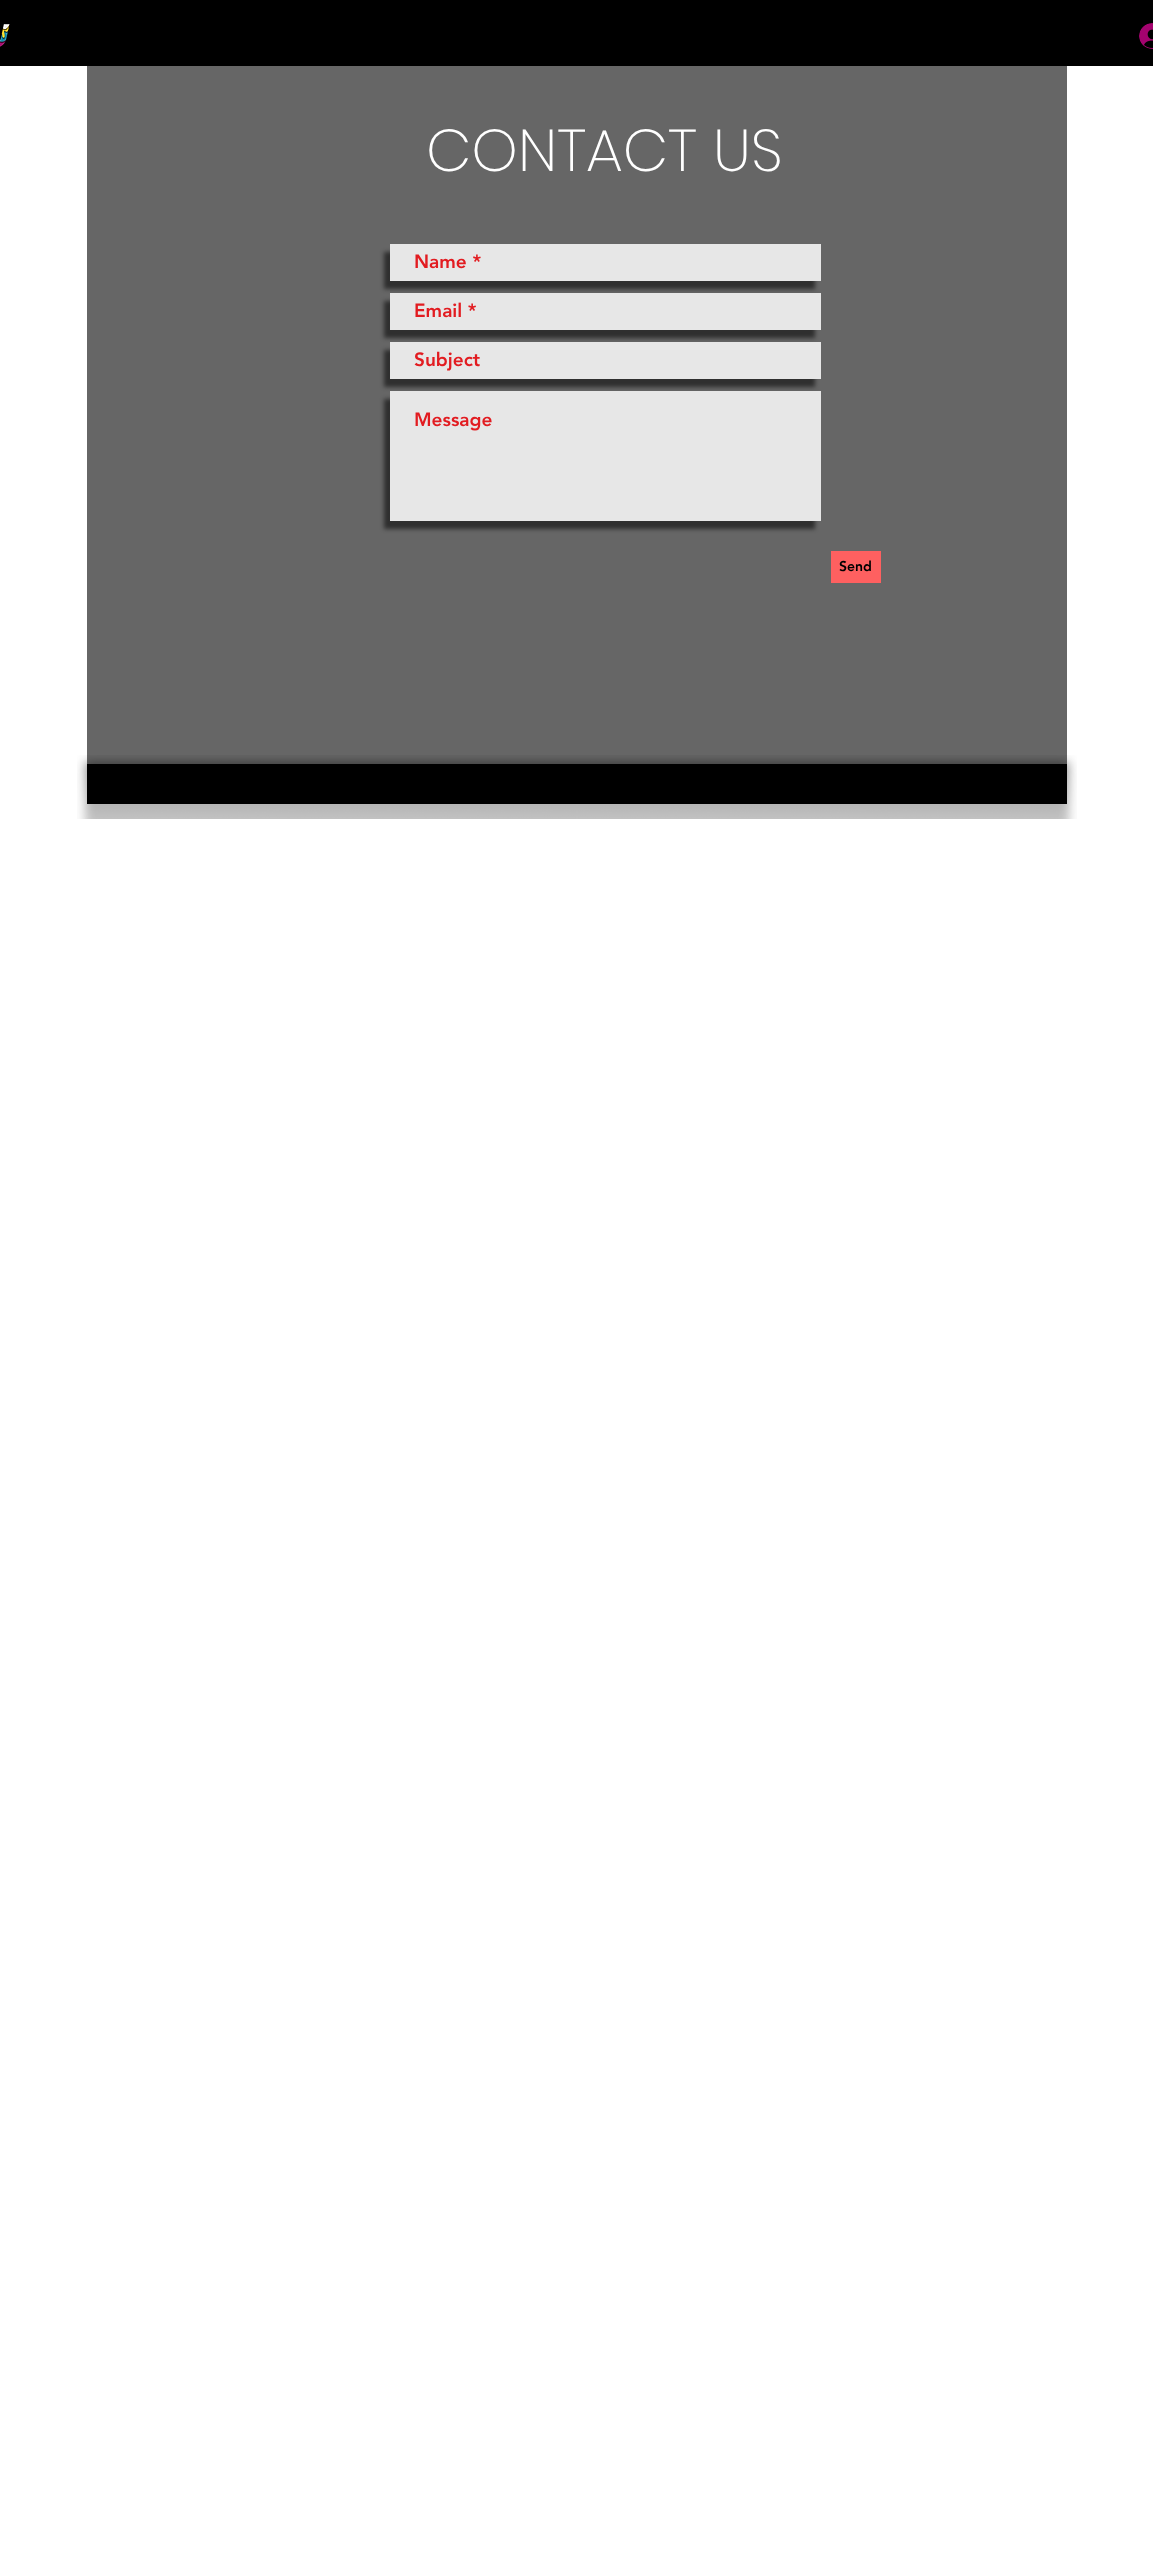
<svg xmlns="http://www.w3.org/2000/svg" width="1153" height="2570">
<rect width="100%" height="100%" fill="#fff"/>
<rect width="1153" height="66" fill="#000"/>
<image x="0" y="24" width="10" height="23" href="media/1.png"/>
<image x="1139" y="23" width="14" height="26" href="media/2.png"/>
<rect x="87" y="66" width="980" height="698" fill="#666"/>
<text x="426" y="171" style="font-family:Poppins;font-size:59px;font-weight:200;fill:#fff">CONTACT US</text>
<rect x="384" y="252" width="431" height="37" fill="#0000008a" filter="blur(2px)"/>
<rect x="390" y="244" width="431" height="37" fill="#e7e7e7"/>
<text x="414" y="268" style="font-family:'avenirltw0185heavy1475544';font-size:19px;font-weight:900;fill:#e21c21">Name *</text>
<rect x="384" y="301" width="431" height="37" fill="#0000008a" filter="blur(2px)"/>
<rect x="390" y="293" width="431" height="37" fill="#e7e7e7"/>
<text x="414" y="317" style="font-family:'avenirltw0185heavy1475544';font-size:19px;font-weight:900;fill:#e21c21">Email *</text>
<rect x="384" y="350" width="431" height="37" fill="#0000008a" filter="blur(2px)"/>
<rect x="390" y="342" width="431" height="37" fill="#e7e7e7"/>
<text x="414" y="366" style="font-family:'avenirltw0185heavy1475544';font-size:19px;font-weight:900;fill:#e21c21">Subject</text>
<rect x="384" y="399" width="431" height="130" fill="#0000008a" filter="blur(2px)"/>
<rect x="390" y="391" width="431" height="130" fill="#e7e7e7"/>
<text x="414" y="426" style="font-family:'avenirltw0185heavy1475544';font-size:19px;font-weight:900;fill:#e21c21">Message</text>
<rect x="831" y="551" width="50" height="32" fill="#fe6060"/>
<text x="839" y="571" style="font-family:'avenirltw0185heavy1475544';font-size:14px;font-weight:900;fill:#000">Send</text>
<image x="77" y="755" width="45" height="64" href="media/3.png"/>
<image x="122" y="755" width="910" height="64" href="media/4.png"/>
<image x="1032" y="755" width="45" height="64" href="media/5.png"/>
<rect x="87" y="764" width="980" height="40" fill="#000"/>
</svg>
